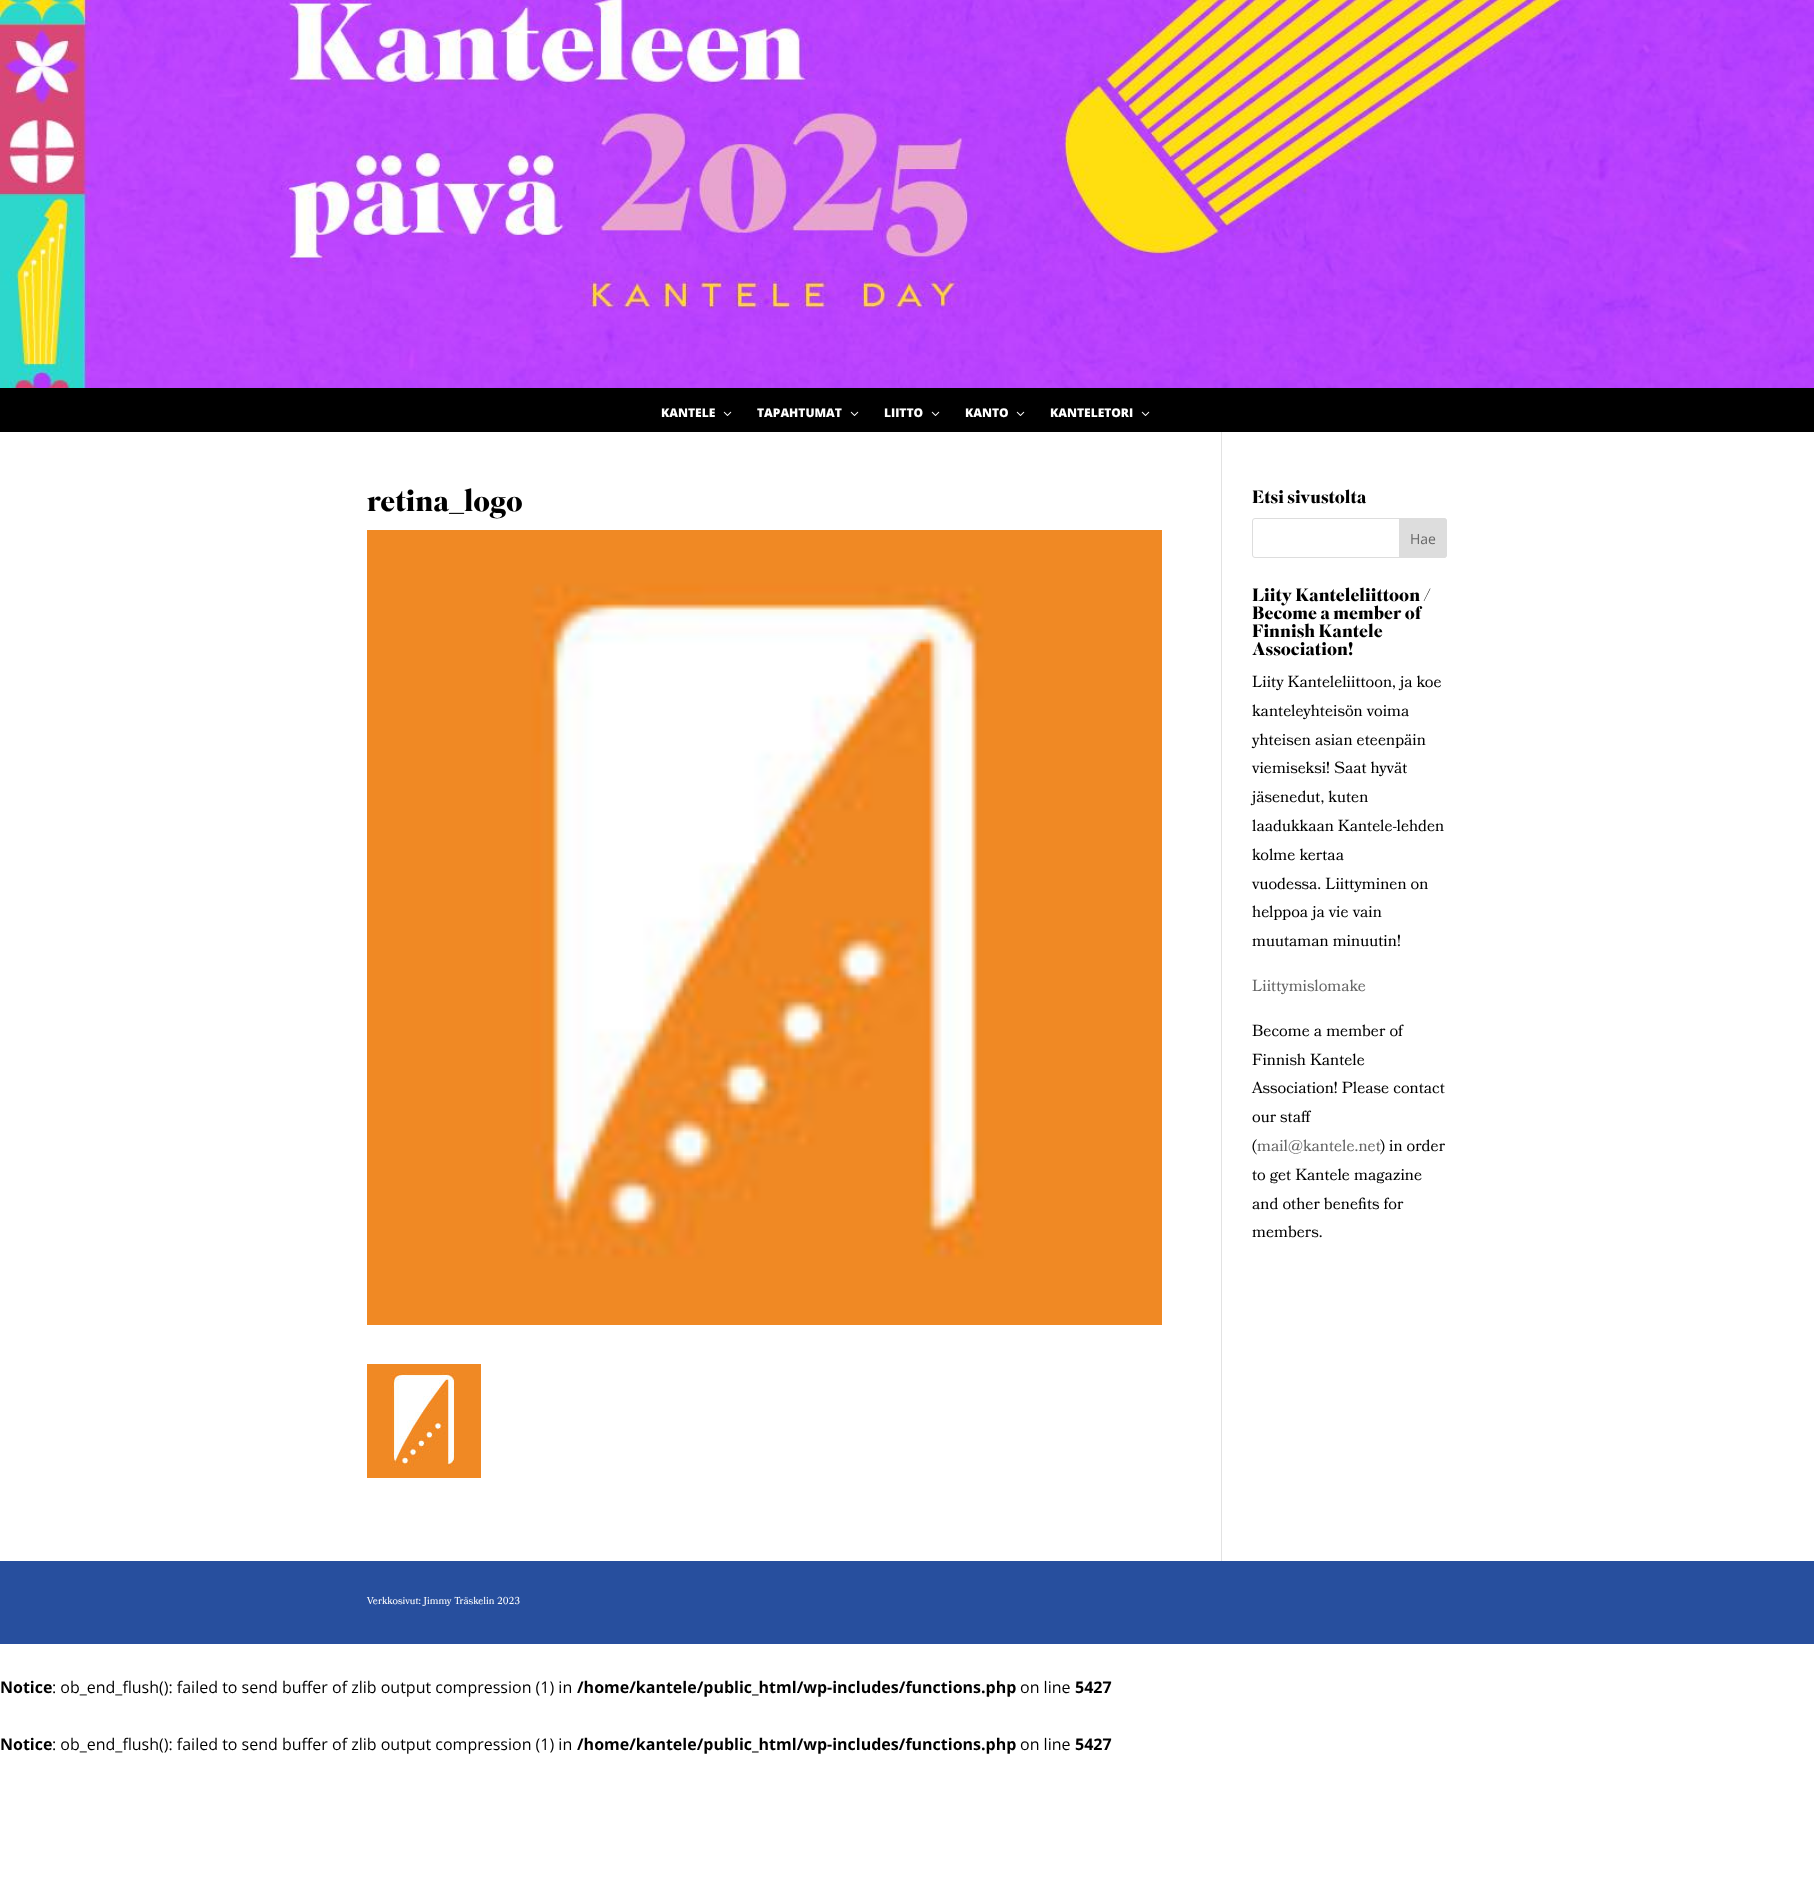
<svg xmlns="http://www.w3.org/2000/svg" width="1814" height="1886">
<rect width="100%" height="100%" fill="#fff"/>
<image x="0" y="0" width="1814" height="388" href="media/1.png"/>
<rect y="388" width="1814" height="44" fill="#000"/>
<text x="661" y="417" style="font-family:Open Sans;font-size:12px;font-weight:800;fill:#fff">KANTELE</text>
<image x="723" y="411" width="9" height="5" href="media/2.png"/>
<text x="757" y="417" style="font-family:Open Sans;font-size:12px;font-weight:800;fill:#fff">TAPAHTUMAT</text>
<image x="850" y="411" width="9" height="5" href="media/2.png"/>
<text x="884" y="417" style="font-family:Open Sans;font-size:12px;font-weight:800;fill:#fff">LIITTO</text>
<image x="931" y="411" width="9" height="5" href="media/2.png"/>
<text x="965" y="417" style="font-family:Open Sans;font-size:12px;font-weight:800;fill:#fff">KANTO</text>
<image x="1016" y="411" width="9" height="5" href="media/2.png"/>
<text x="1050" y="417" style="font-family:Open Sans;font-size:12px;font-weight:800;fill:#fff">KANTELETORI</text>
<image x="1141" y="411" width="9" height="5" href="media/2.png"/>
<rect x="1221" y="432" width="1" height="1129" fill="#e2e2e2"/>
<text x="367" y="511" style="font-family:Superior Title;font-size:30px;font-weight:bold;fill:#000">retina_logo</text>
<image x="367" y="530" width="795" height="795" href="media/3.png"/>
<image x="367" y="1364" width="114" height="114" href="media/4.png"/>
<text x="1252" y="503" style="font-family:Superior Title;font-size:18px;font-weight:bold;fill:#000">Etsi sivustolta</text>
<rect x="1252.5" y="518.5" width="194" height="39" rx="2.5" fill="none" stroke="#ddd"/>
<path d="M1399.5 518.5h44.5c1.5 0 2.5 1 2.5 2.5v34c0 1.5-1 2.5-2.5 2.5h-44.5z" fill="#ddd" stroke="#ddd"/>
<text x="1410" y="544" style="font-family:Open Sans;font-size:14px;fill:#666">Hae</text>
<text x="1252" y="601" style="font-family:Superior Title;font-size:18px;font-weight:bold;fill:#000">Liity Kanteleliittoon /</text>
<text x="1252" y="619" style="font-family:Superior Title;font-size:18px;font-weight:bold;fill:#000">Become a member of</text>
<text x="1252" y="637" style="font-family:Superior Title;font-size:18px;font-weight:bold;fill:#000">Finnish Kantele</text>
<text x="1252" y="655" style="font-family:Superior Title;font-size:18px;font-weight:bold;fill:#000">Association!</text>
<text x="1252" y="687" style="font-family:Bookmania;font-size:16px;fill:#000">Liity Kanteleliittoon, ja koe</text>
<text x="1252" y="716" style="font-family:Bookmania;font-size:16px;fill:#000">kanteleyhteisön voima</text>
<text x="1252" y="745" style="font-family:Bookmania;font-size:16px;fill:#000">yhteisen asian eteenpäin</text>
<text x="1252" y="773" style="font-family:Bookmania;font-size:16px;fill:#000">viemiseksi! Saat hyvät</text>
<text x="1252" y="802" style="font-family:Bookmania;font-size:16px;fill:#000">jäsenedut, kuten</text>
<text x="1252" y="831" style="font-family:Bookmania;font-size:16px;fill:#000">laadukkaan Kantele-lehden</text>
<text x="1252" y="860" style="font-family:Bookmania;font-size:16px;fill:#000">kolme kertaa</text>
<text x="1252" y="889" style="font-family:Bookmania;font-size:16px;fill:#000">vuodessa. Liittyminen on</text>
<text x="1252" y="917" style="font-family:Bookmania;font-size:16px;fill:#000">helppoa ja vie vain</text>
<text x="1252" y="946" style="font-family:Bookmania;font-size:16px;fill:#000">muutaman minuutin!</text>
<text x="1252" y="991" style="font-family:Bookmania;font-size:16px;fill:#666">Liittymislomake</text>
<text x="1252" y="1036" style="font-family:Bookmania;font-size:16px;fill:#000">Become a member of</text>
<text x="1252" y="1065" style="font-family:Bookmania;font-size:16px;fill:#000">Finnish Kantele</text>
<text x="1252" y="1093" style="font-family:Bookmania;font-size:16px;fill:#000">Association! Please contact</text>
<text x="1252" y="1122" style="font-family:Bookmania;font-size:16px;fill:#000">our staff</text>
<text x="1252" y="1151" style="font-family:Bookmania;font-size:16px;fill:#000">(</text>
<text x="1257" y="1151" style="font-family:Bookmania;font-size:16px;fill:#666">mail@kantele.net</text>
<text x="1380" y="1151" style="font-family:Bookmania;font-size:16px;fill:#000">) in order</text>
<text x="1252" y="1180" style="font-family:Bookmania;font-size:16px;fill:#000">to get Kantele magazine</text>
<text x="1252" y="1209" style="font-family:Bookmania;font-size:16px;fill:#000">and other benefits for</text>
<text x="1252" y="1237" style="font-family:Bookmania;font-size:16px;fill:#000">members.</text>
<rect y="1561" width="1814" height="83" fill="#274f9e"/>
<text x="367" y="1604" style="font-family:Bookmania;font-size:10px;fill:#fff">Verkkosivut: Jimmy Träskelin 2023</text>
<text x="0" y="1693" style="font-family:Open Sans;font-size:16px;font-weight:bold;fill:#000">Notice</text>
<text x="52" y="1693" style="font-family:Open Sans;font-size:16px;fill:#000">: ob_end_flush(): failed to send buffer of zlib output compression (1) in</text>
<text x="577" y="1693" style="font-family:Open Sans;font-size:16px;font-weight:bold;fill:#000">/home/kantele/public_html/wp-includes/functions.php</text>
<text x="1020" y="1693" style="font-family:Open Sans;font-size:16px;fill:#000">on line</text>
<text x="1075" y="1693" style="font-family:Open Sans;font-size:16px;font-weight:bold;fill:#000">5427</text>
<text x="0" y="1750" style="font-family:Open Sans;font-size:16px;font-weight:bold;fill:#000">Notice</text>
<text x="52" y="1750" style="font-family:Open Sans;font-size:16px;fill:#000">: ob_end_flush(): failed to send buffer of zlib output compression (1) in</text>
<text x="577" y="1750" style="font-family:Open Sans;font-size:16px;font-weight:bold;fill:#000">/home/kantele/public_html/wp-includes/functions.php</text>
<text x="1020" y="1750" style="font-family:Open Sans;font-size:16px;fill:#000">on line</text>
<text x="1075" y="1750" style="font-family:Open Sans;font-size:16px;font-weight:bold;fill:#000">5427</text>
</svg>
